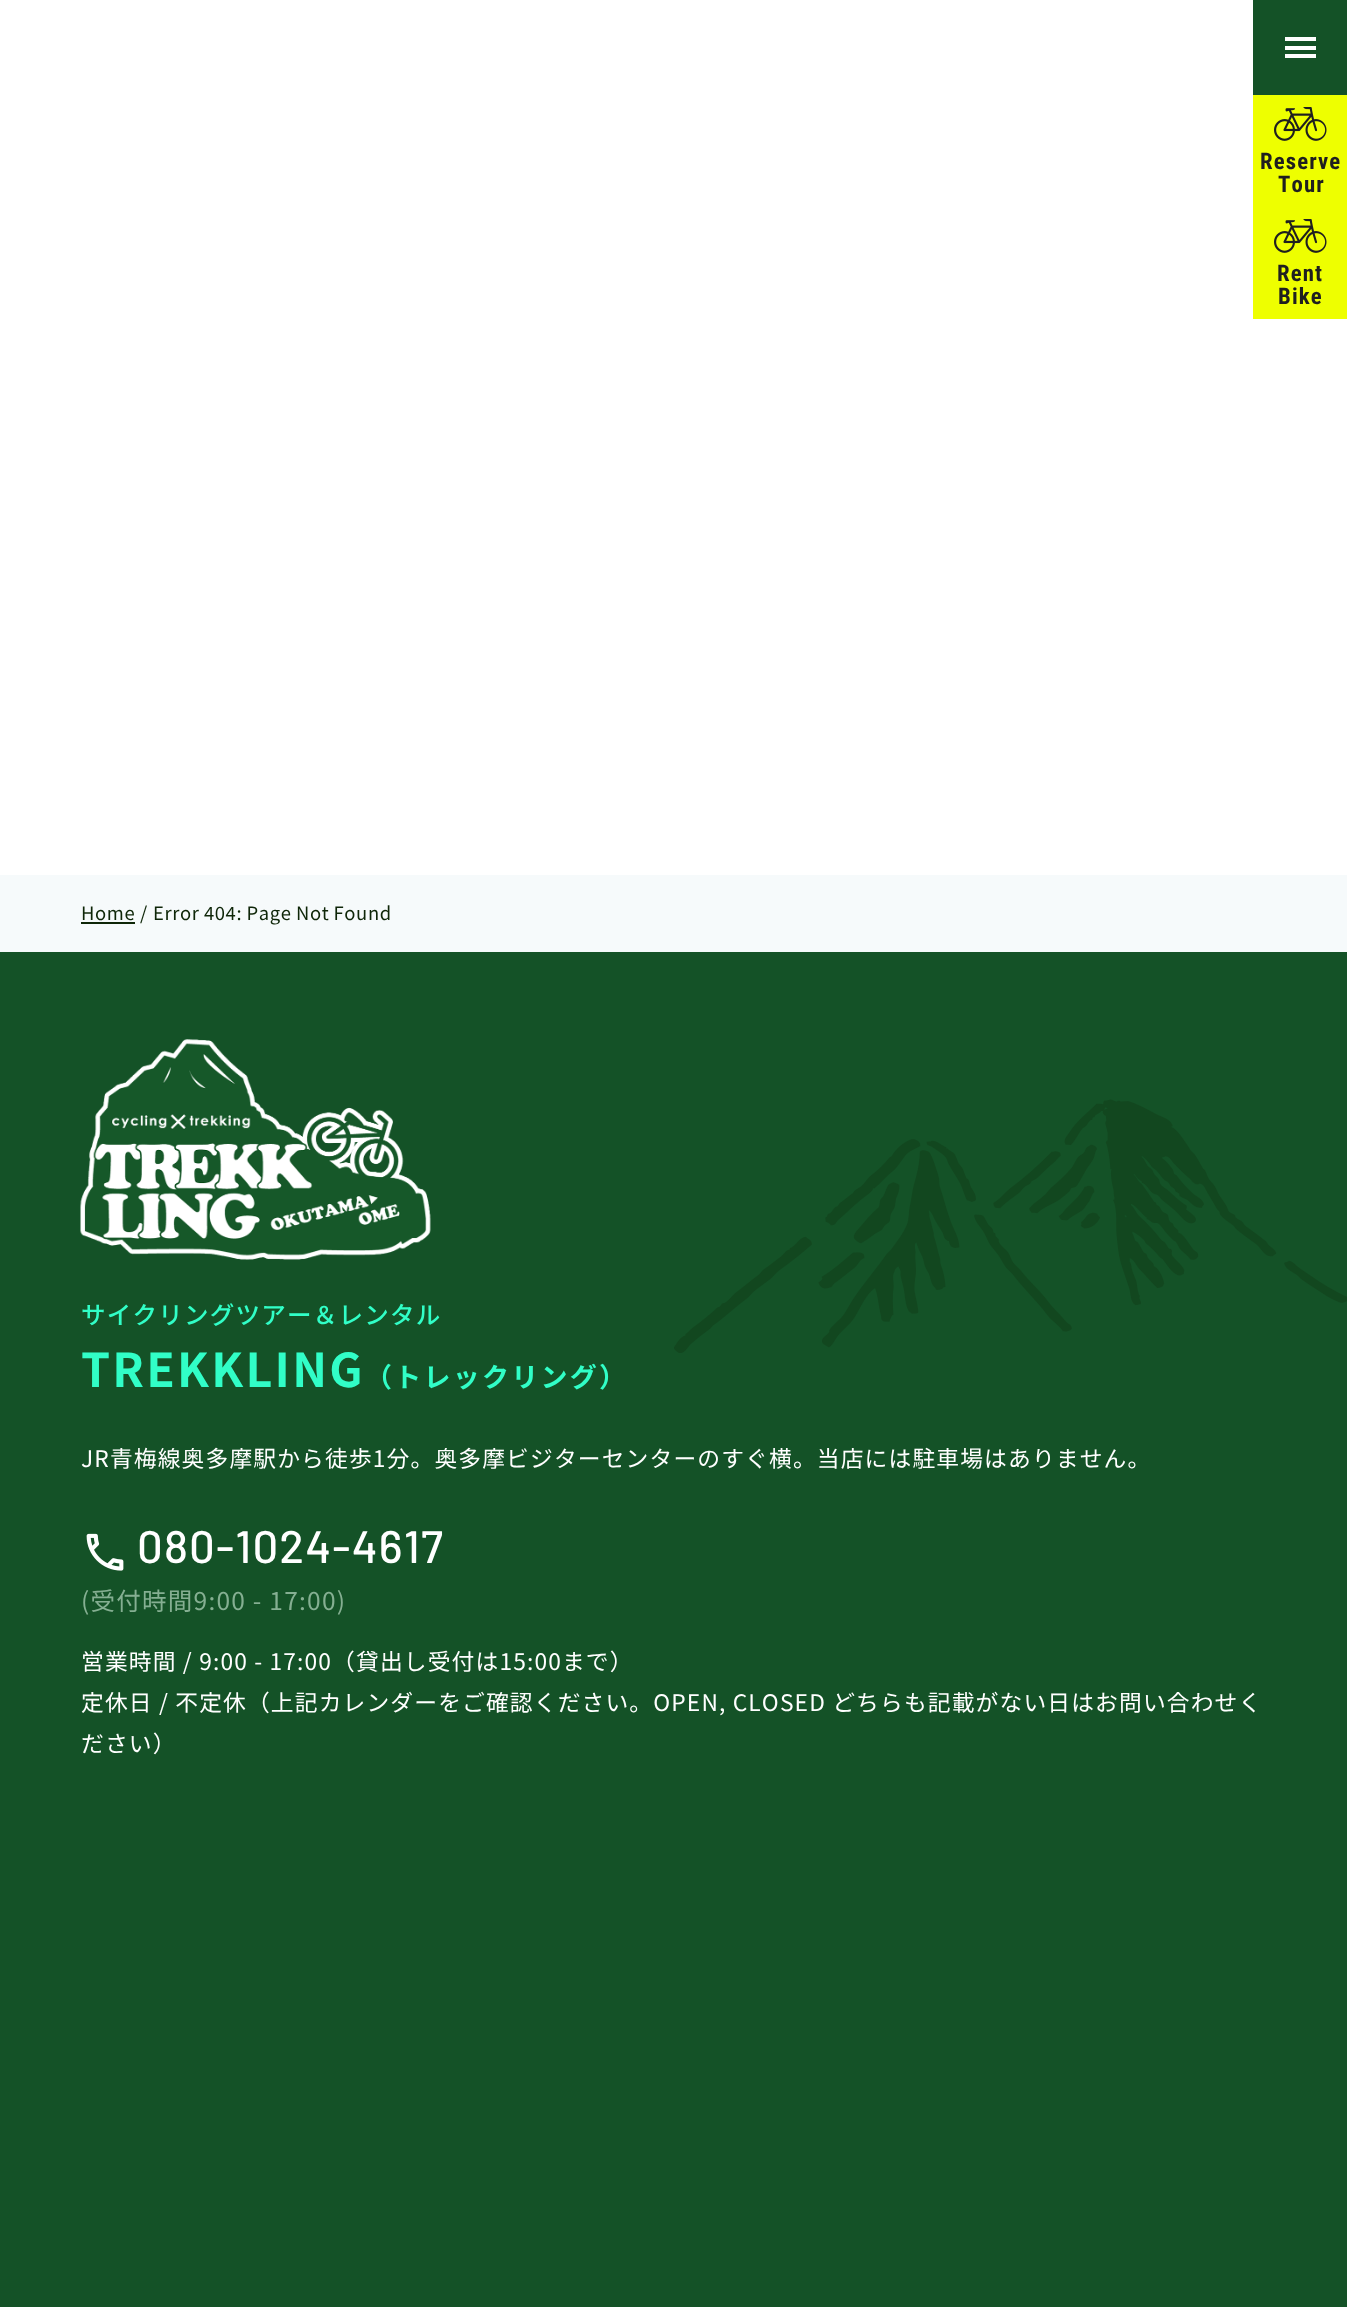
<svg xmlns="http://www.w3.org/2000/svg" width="1347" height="2307">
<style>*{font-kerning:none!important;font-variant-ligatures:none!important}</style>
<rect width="100%" height="100%" fill="#fff"/>
<rect x="1253" width="94" height="95" fill="#145227"/>
<rect x="1285" y="37" width="31" height="4" fill="#fff"/>
<rect x="1285" y="46" width="31" height="4" fill="#fff"/>
<rect x="1285" y="54" width="31" height="4" fill="#fff"/>
<rect x="1253" y="95" width="94" height="224" fill="#ef0"/>
<image x="1274" y="107" width="53" height="34" href="media/1.png"/>
<text x="1260" y="169" style="font-family:Roboto Condensed;font-size:22.75px;font-weight:bold;letter-spacing:1.15px;fill:#1f1f1f">Reserve</text>
<text x="1278" y="192" style="font-family:Roboto Condensed;font-size:22.75px;font-weight:bold;letter-spacing:1.15px;fill:#1f1f1f">Tour</text>
<image x="1274" y="219" width="53" height="34" href="media/1.png"/>
<text x="1277" y="281" style="font-family:Roboto Condensed;font-size:22.75px;font-weight:bold;letter-spacing:1.15px;fill:#1f1f1f">Rent</text>
<text x="1278" y="304" style="font-family:Roboto Condensed;font-size:22.75px;font-weight:bold;letter-spacing:1.15px;fill:#1f1f1f">Bike</text>
<rect y="875" width="1347" height="77" fill="#f6fafb"/>
<rect x="81" y="922" width="54" height="2" fill="#0e2608"/>
<text x="81" y="920" style="font-family:Noto Sans JP;font-size:18.4px;letter-spacing:0.65px;fill:#0e2608">Home /</text>
<text x="153" y="920" word-spacing="-0.5" style="font-family:Noto Sans JP;font-size:18.4px;letter-spacing:0.65px;fill:#0e2608">Error 404: Page Not Found</text>
<rect y="952" width="1347" height="1355" fill="#145227"/>
<image x="674" y="1099" width="673" height="254" href="media/2.png"/>
<image x="80" y="1039" width="351" height="221" href="media/3.png"/>
<text x="81" y="1324" style="font-family:Noto Sans JP;font-size:24.5px;font-weight:500;letter-spacing:1.25px;fill:#31fec7">サイクリングツアー＆レンタル</text>
<text x="81" y="1387" style="font-family:Noto Sans JP;font-size:46.5px;font-weight:bold;letter-spacing:2.25px;fill:#31fec7">TREKKLING</text>
<text x="365" y="1387" style="font-family:Noto Sans JP;font-size:27px;font-weight:bold;letter-spacing:2.25px;fill:#31fec7">（トレックリング）</text>
<text x="81" y="1467" style="font-family:Noto Sans JP;font-size:22.75px;letter-spacing:1.15px;fill:#fff">JR青梅線奥多摩駅から徒歩1分。奥多摩ビジターセンターのすぐ横。当店には駐車場はありません。</text>
<image x="86" y="1533" width="38" height="38" href="media/4.png"/>
<text x="137" y="1563" style="font-family:Barlow;font-size:45.5px;font-weight:500;letter-spacing:1.15px;fill:#fff">080-1024-4617</text>
<text x="81" y="1610" style="font-family:Noto Sans JP;font-size:24.5px;letter-spacing:1.25px;fill:#85af92">(受付時間9:00 - 17:00)</text>
<text x="81" y="1670" style="font-family:Noto Sans JP;font-size:22.75px;letter-spacing:1.15px;fill:#fff">営業時間 / 9:00 - 17:00（貸出し受付は15:00まで）</text>
<text x="81" y="1711" style="font-family:Noto Sans JP;font-size:22.75px;letter-spacing:1.15px;fill:#fff">定休日 / 不定休（上記カレンダーをご確認ください。OPEN, CLOSED どちらも記載がない日はお問い合わせく</text>
<text x="81" y="1752" style="font-family:Noto Sans JP;font-size:22.75px;letter-spacing:1.15px;fill:#fff">ださい）</text>
</svg>
